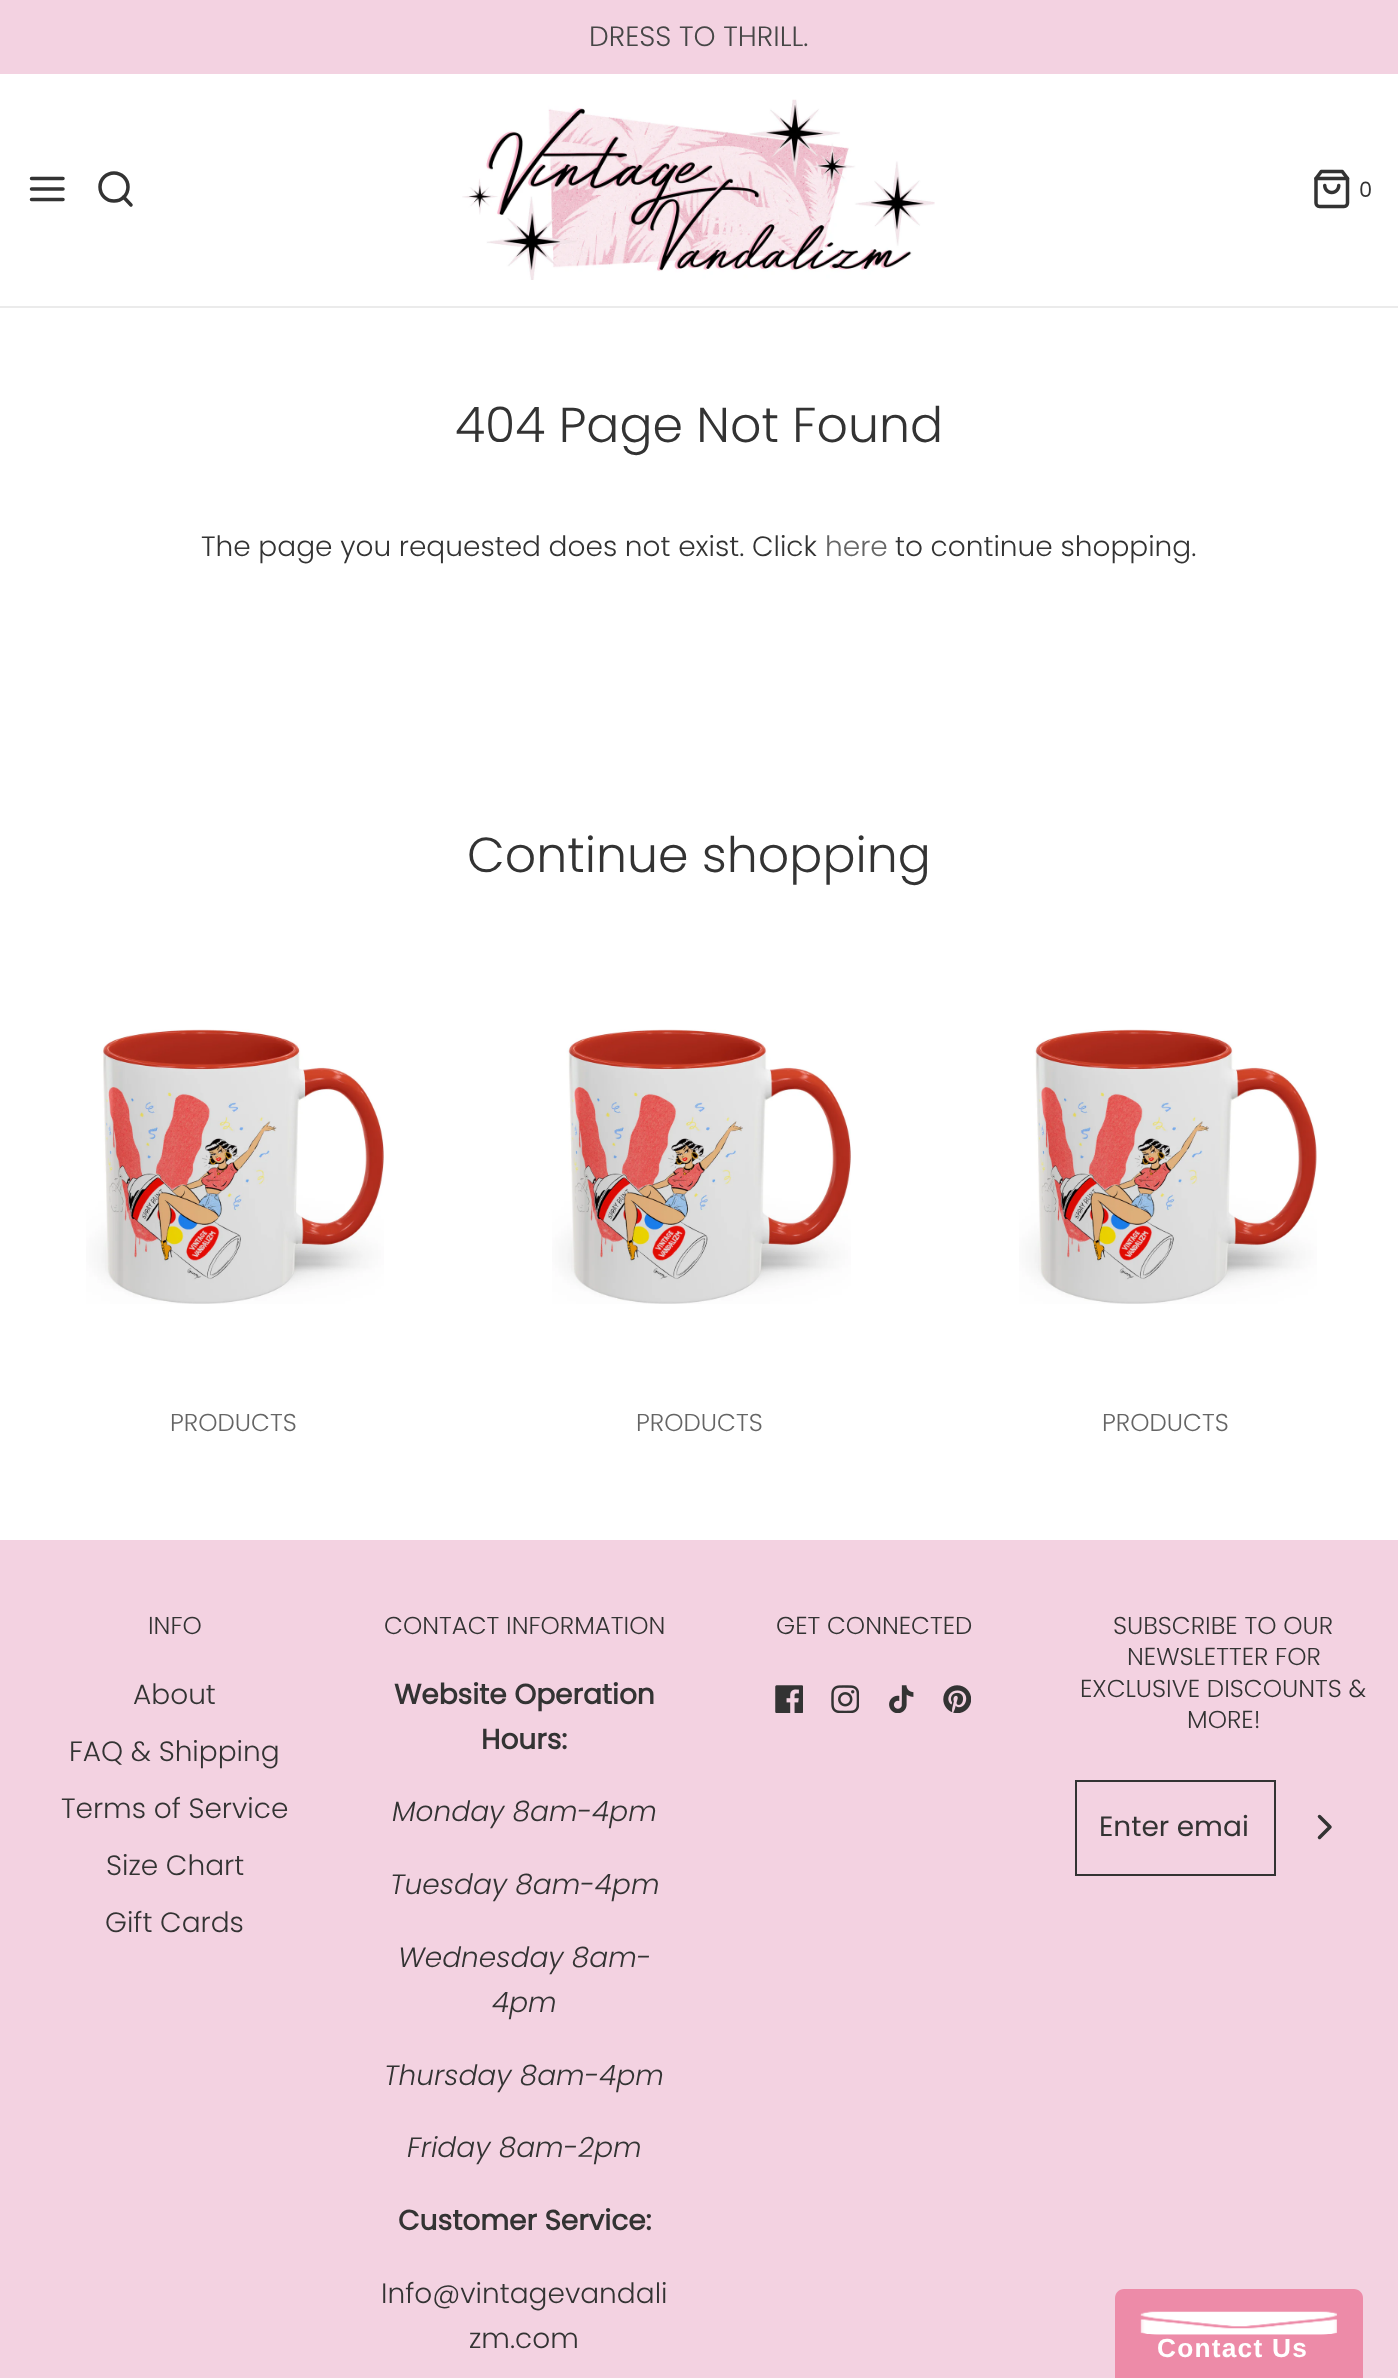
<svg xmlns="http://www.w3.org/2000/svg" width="1398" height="2378">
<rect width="100%" height="100%" fill="#fff"/>
<rect width="1398" height="74" fill="#f3d2e1"/>
<text x="589" y="46" style="font-family:Poppins;font-size:28px;font-weight:300;fill:#464646">DRESS TO THRILL.</text>
<rect y="306" width="1398" height="2" fill="#ebebeb"/>
<path d="M31.5 189h31.5m-31.5-10.5h31.5m-31.5 21h31.5" fill="none" stroke="#333" stroke-width="3.5" stroke-linecap="round" stroke-linejoin="round"/>
<circle cx="114" cy="187" r="14" fill="none" stroke="#333" stroke-width="3.5"/>
<path d="M131 205l-7.5-8" fill="none" stroke="#333" stroke-width="3.5" stroke-linecap="round" stroke-linejoin="round"/>
<image x="462" y="99" width="473" height="181" href="media/1.png"/>
<image x="1314" y="169" width="36" height="40" href="media/2.png"/>
<text x="1359" y="197" style="font-family:Poppins;font-size:21px;fill:#333">0</text>
<text x="455" y="442" style="font-family:Poppins;font-size:49px;font-weight:300;fill:#333">404 Page Not Found</text>
<text x="201" y="556" style="font-family:Poppins;font-size:28px;font-weight:300;fill:#333">The page you requested does not exist. Click</text>
<text x="825" y="556" style="font-family:Poppins;font-size:28px;font-weight:300;fill:#656565">here</text>
<text x="895" y="556" style="font-family:Poppins;font-size:28px;font-weight:300;fill:#333">to continue shopping.</text>
<text x="467" y="872" style="font-family:Poppins;font-size:49px;font-weight:300;fill:#333">Continue shopping</text>
<image x="86" y="1029" width="298" height="275" href="media/3.png"/>
<text x="170" y="1431" style="font-family:Poppins;font-size:24.5px;font-weight:300;fill:#656565">PRODUCTS</text>
<image x="552" y="1029" width="299" height="275" href="media/4.png"/>
<text x="636" y="1431" style="font-family:Poppins;font-size:24.5px;font-weight:300;fill:#656565">PRODUCTS</text>
<image x="1019" y="1029" width="298" height="275" href="media/5.png"/>
<text x="1102" y="1431" style="font-family:Poppins;font-size:24.5px;font-weight:300;fill:#656565">PRODUCTS</text>
<rect y="1540" width="1398" height="838" fill="#f3d2e1"/>
<text x="148" y="1634" style="font-family:Poppins;font-size:24.5px;font-weight:300;fill:#333">INFO</text>
<text x="133" y="1704" style="font-family:Poppins;font-size:28px;font-weight:300;fill:#333">About</text>
<text x="69" y="1761" style="font-family:Poppins;font-size:28px;font-weight:300;fill:#333">FAQ &amp; Shipping</text>
<text x="61" y="1818" style="font-family:Poppins;font-size:28px;font-weight:300;fill:#333">Terms of Service</text>
<text x="106" y="1875" style="font-family:Poppins;font-size:28px;font-weight:300;fill:#333">Size Chart</text>
<text x="105" y="1932" style="font-family:Poppins;font-size:28px;font-weight:300;fill:#333">Gift Cards</text>
<text x="384" y="1634" style="font-family:Poppins;font-size:24.5px;font-weight:300;fill:#333">CONTACT INFORMATION</text>
<text x="394" y="1704" style="font-family:Poppins;font-size:28px;font-weight:bold;fill:#333">Website Operation</text>
<text x="481" y="1749" style="font-family:Poppins;font-size:28px;font-weight:bold;fill:#333">Hours:</text>
<text x="392" y="1821" style="font-family:Poppins;font-size:28px;font-weight:300;font-style:italic;fill:#333">Monday 8am-4pm</text>
<text x="390" y="1894" style="font-family:Poppins;font-size:28px;font-weight:300;font-style:italic;fill:#333">Tuesday 8am-4pm</text>
<text x="398" y="1967" style="font-family:Poppins;font-size:28px;font-weight:300;font-style:italic;fill:#333">Wednesday 8am-</text>
<text x="492" y="2012" style="font-family:Poppins;font-size:28px;font-weight:300;font-style:italic;fill:#333">4pm</text>
<text x="384" y="2085" style="font-family:Poppins;font-size:28px;font-weight:300;font-style:italic;fill:#333">Thursday 8am-4pm</text>
<text x="407" y="2157" style="font-family:Poppins;font-size:28px;font-weight:300;font-style:italic;fill:#333">Friday 8am-2pm</text>
<text x="398" y="2230" style="font-family:Poppins;font-size:28px;font-weight:bold;fill:#333">Customer Service:</text>
<text x="381" y="2303" style="font-family:Poppins;font-size:28px;font-weight:300;fill:#333">Info@vintagevandali</text>
<text x="469" y="2348" style="font-family:Poppins;font-size:28px;font-weight:300;fill:#333">zm.com</text>
<text x="776" y="1634" style="font-family:Poppins;font-size:24.5px;font-weight:300;fill:#333">GET CONNECTED</text>
<image x="775" y="1685" width="28" height="28" href="media/6.png"/>
<image x="831" y="1685" width="28" height="28" href="media/7.png"/>
<image x="889" y="1685" width="25" height="28" href="media/8.png"/>
<image x="943" y="1685" width="28" height="28" href="media/9.png"/>
<text x="1113" y="1634" style="font-family:Poppins;font-size:24.5px;font-weight:300;fill:#333">SUBSCRIBE TO OUR</text>
<text x="1127" y="1665" style="font-family:Poppins;font-size:24.5px;font-weight:300;fill:#333">NEWSLETTER FOR</text>
<text x="1080" y="1697" style="font-family:Poppins;font-size:24.5px;font-weight:300;fill:#333">EXCLUSIVE DISCOUNTS &amp;</text>
<text x="1187" y="1728" style="font-family:Poppins;font-size:24.5px;font-weight:300;fill:#333">MORE!</text>
<rect x="1076" y="1781" width="199" height="94" fill="none" stroke="#333" stroke-width="2"/>
<text x="1099" y="1836" style="font-family:Poppins;font-size:28px;fill:#333">Enter emai</text>
<path d="M1319.5 1837.5l10.5-10.5l-10.5-10.5" fill="none" stroke="#333" stroke-width="3.5" stroke-linecap="round" stroke-linejoin="round"/>
<path d="M1124 2289h230c5 0 9 4 9 9v80h-248v-80c0-5 4-9 9-9z" fill="#ed8ba8"/>
<image x="1140" y="2311" width="197" height="24" href="media/10.png"/>
<text x="1157" y="2357" style="font-family:Liberation Sans;font-size:26.25px;font-weight:bold;letter-spacing:1.25px;fill:#fff">Contact Us</text>
</svg>
